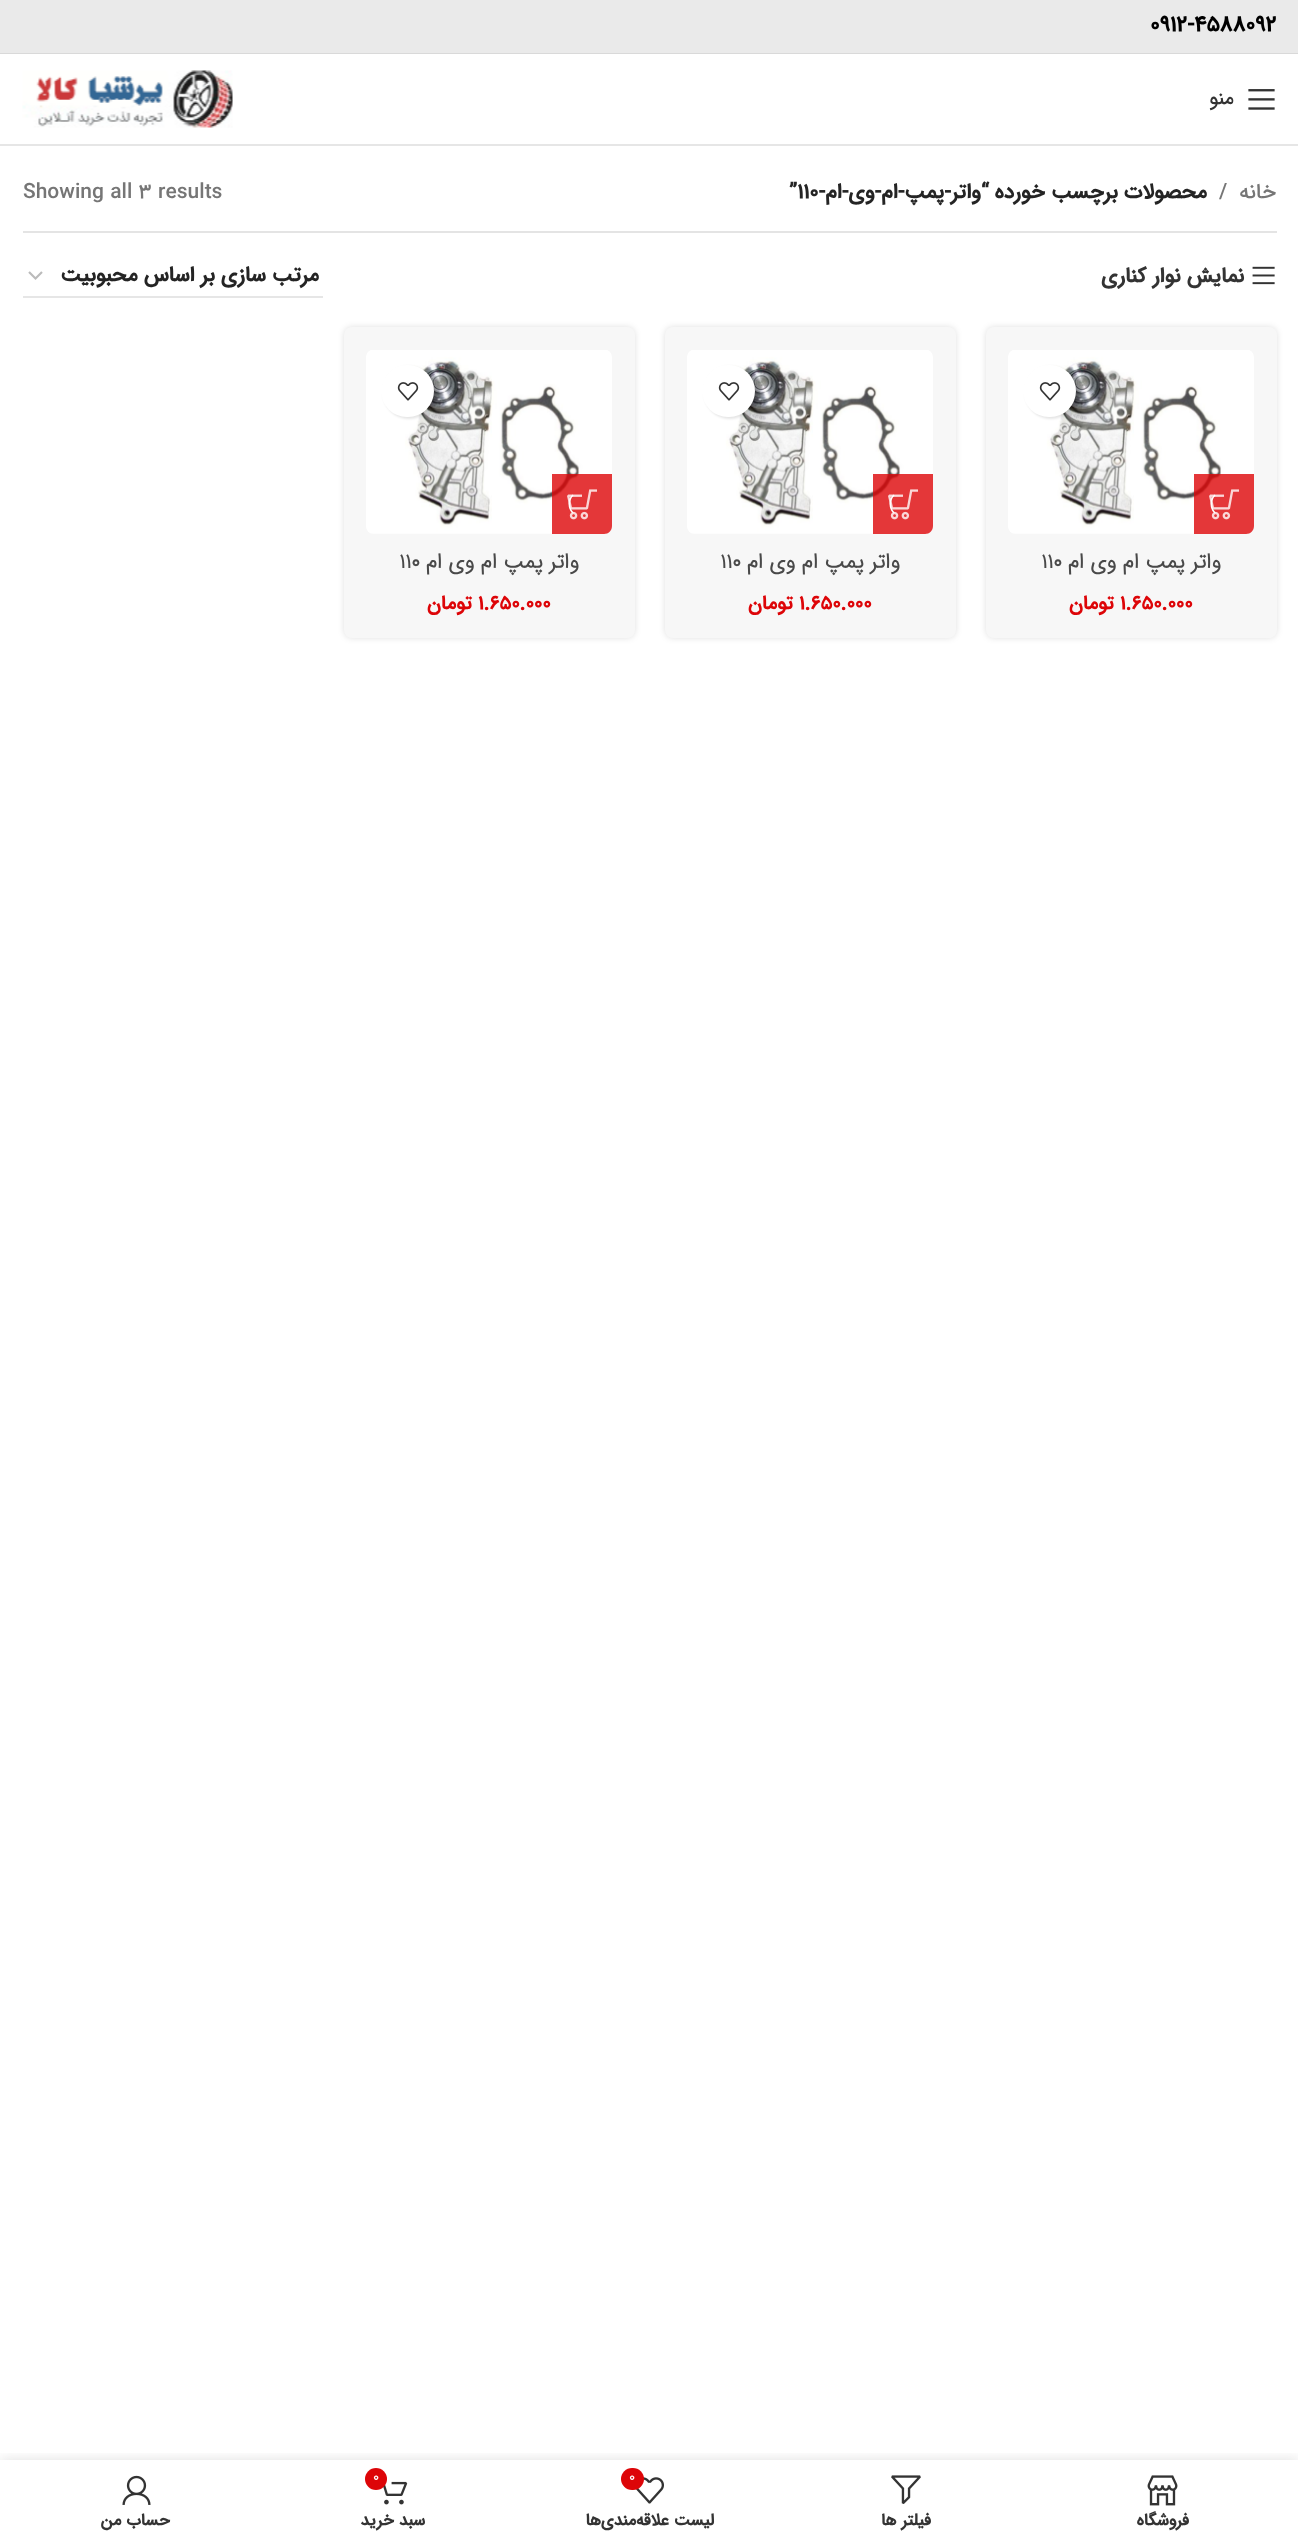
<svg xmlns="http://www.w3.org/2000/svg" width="1298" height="2542">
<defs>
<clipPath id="clip1"><rect x="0" y="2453" width="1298" height="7"/></clipPath>
</defs>
<rect width="100%" height="100%" fill="#fff"/>
<rect width="1298" height="53" fill="#eaeaea"/>
<rect y="53" width="1298" height="1" fill="#d9d9d9"/>
<text x="1150" y="31" style="font-family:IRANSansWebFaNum;font-size:22px;font-weight:bold;fill:#000">0912-4588092</text>
<rect y="144" width="1298" height="2" fill="#e6e6e6"/>
<image x="1248" y="89" width="27" height="21" href="media/1.png"/>
<text x="1234" y="104" style="font-family:IRANSansWebFaNum;font-size:19.5px;font-weight:500;direction:rtl;fill:#333">منو</text>
<image x="22" y="70" width="211" height="58" href="media/2.png"/>
<rect x="23" y="231" width="1254" height="2" fill="#e4e4e4"/>
<text x="1276" y="198" style="font-family:IRANSansWebFaNum;font-size:21px;font-weight:500;direction:rtl;fill:#767676">خانه</text>
<text x="1219" y="198" style="font-family:IRANSansWebFaNum;font-size:21px;font-weight:500;fill:#767676">/</text>
<text x="1207" y="198" style="font-family:IRANSansWebFaNum;font-size:21px;font-weight:bold;direction:rtl;fill:#242424">محصولات برچسب خورده</text>
<text x="989" y="198" style="font-family:IRANSansWebFaNum;font-size:21px;font-weight:bold;direction:rtl;fill:#242424">“واتر-پمپ-ام-وی-ام-</text>
<text x="789" y="198" style="font-family:IRANSansWebFaNum;font-size:21px;font-weight:bold;fill:#242424">”110</text>
<text x="23" y="198" style="font-family:IRANSansWebFaNum;font-size:21px;font-weight:500;fill:#767676">Showing all 3 results</text>
<image x="1252" y="266" width="23" height="19" href="media/3.png"/>
<text x="1244" y="282" style="font-family:IRANSansWebFaNum;font-size:21px;font-weight:bold;direction:rtl;fill:#333">نمایش نوار کناری</text>
<path d="M29 272l6.5 6.5l6.5-6.5" fill="none" stroke="#bbb" stroke-width="2.2"/>
<rect x="23" y="296" width="300" height="2" fill="#e6e6e6"/>
<text x="319" y="281" style="font-family:IRANSansWebFaNum;font-size:21px;font-weight:bold;direction:rtl;fill:#242424">مرتب سازی بر اساس محبوبیت</text>
<rect x="986" y="327" width="291" height="311" rx="8" fill="#0000001f" filter="blur(3px)"/>
<rect x="986" y="327" width="291" height="311" rx="8" fill="#f7f7f7"/>
<image x="1008" y="350" width="246" height="184" href="media/4.png"/>
<rect x="1025" y="366" width="52" height="53" rx="26" fill="#0000001a" filter="blur(1px)"/>
<rect x="1023" y="365" width="53" height="52" rx="26" fill="#fff"/>
<image x="1039" y="382" width="22" height="19" href="media/5.png"/>
<path d="M1194 474h60v52c0 4.5-3.5 8-8 8h-52z" fill="#dd0508cc"/>
<image x="1209" y="489" width="30" height="31" href="media/6.png"/>
<path d="M1215 513c-5-5-5-13 0-18" fill="none" stroke="#fff" stroke-width="1.5"/>
<text x="1221" y="568" style="font-family:'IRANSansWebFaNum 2';font-size:21px;font-weight:bold;direction:rtl;fill:#494949">واتر پمپ ام وی ام</text>
<text x="1041" y="568" style="font-family:'IRANSansWebFaNum 2';font-size:21px;font-weight:bold;fill:#494949">110</text>
<text x="1120" y="609" style="font-family:IRANSansWebFaNum;font-size:19.5px;font-weight:bold;fill:#dd0508">۱.۶۵۰.۰۰۰</text>
<text x="1114" y="609" style="font-family:IRANSansWebFaNum;font-size:19.5px;font-weight:bold;direction:rtl;fill:#dd0508">تومان</text>
<rect x="665" y="327" width="291" height="311" rx="8" fill="#0000001f" filter="blur(3px)"/>
<rect x="665" y="327" width="291" height="311" rx="8" fill="#f7f7f7"/>
<image x="687" y="350" width="246" height="184" href="media/4.png"/>
<rect x="704" y="366" width="52" height="53" rx="26" fill="#0000001a" filter="blur(1px)"/>
<rect x="702" y="365" width="53" height="52" rx="26" fill="#fff"/>
<image x="718" y="382" width="22" height="19" href="media/5.png"/>
<path d="M873 474h60v52c0 4.5-3.5 8-8 8h-52z" fill="#dd0508cc"/>
<image x="888" y="489" width="30" height="31" href="media/6.png"/>
<path d="M894 513c-5-5-5-13 0-18" fill="none" stroke="#fff" stroke-width="1.5"/>
<text x="900" y="568" style="font-family:'IRANSansWebFaNum 2';font-size:21px;font-weight:bold;direction:rtl;fill:#494949">واتر پمپ ام وی ام</text>
<text x="720" y="568" style="font-family:'IRANSansWebFaNum 2';font-size:21px;font-weight:bold;fill:#494949">110</text>
<text x="799" y="609" style="font-family:IRANSansWebFaNum;font-size:19.5px;font-weight:bold;fill:#dd0508">۱.۶۵۰.۰۰۰</text>
<text x="793" y="609" style="font-family:IRANSansWebFaNum;font-size:19.5px;font-weight:bold;direction:rtl;fill:#dd0508">تومان</text>
<rect x="344" y="327" width="291" height="311" rx="8" fill="#0000001f" filter="blur(3px)"/>
<rect x="344" y="327" width="291" height="311" rx="8" fill="#f7f7f7"/>
<image x="366" y="350" width="246" height="184" href="media/4.png"/>
<rect x="383" y="366" width="52" height="53" rx="26" fill="#0000001a" filter="blur(1px)"/>
<rect x="381" y="365" width="53" height="52" rx="26" fill="#fff"/>
<image x="397" y="382" width="22" height="19" href="media/5.png"/>
<path d="M552 474h60v52c0 4.5-3.5 8-8 8h-52z" fill="#dd0508cc"/>
<image x="567" y="489" width="30" height="31" href="media/6.png"/>
<path d="M573 513c-5-5-5-13 0-18" fill="none" stroke="#fff" stroke-width="1.5"/>
<text x="579" y="568" style="font-family:'IRANSansWebFaNum 2';font-size:21px;font-weight:bold;direction:rtl;fill:#494949">واتر پمپ ام وی ام</text>
<text x="399" y="568" style="font-family:'IRANSansWebFaNum 2';font-size:21px;font-weight:bold;fill:#494949">110</text>
<text x="478" y="609" style="font-family:IRANSansWebFaNum;font-size:19.5px;font-weight:bold;fill:#dd0508">۱.۶۵۰.۰۰۰</text>
<text x="472" y="609" style="font-family:IRANSansWebFaNum;font-size:19.5px;font-weight:bold;direction:rtl;fill:#dd0508">تومان</text>
<g clip-path="url(#clip1)">
<rect y="2460" width="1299" height="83" fill="#0000001f" filter="blur(7px)"/>
</g>
<image x="1147" y="2475" width="31" height="31" href="media/7.png"/>
<text x="1189" y="2525" style="font-family:IRANSansWebFaNum;font-size:16.5px;font-weight:bold;direction:rtl;fill:#333">فروشگاه</text>
<image x="891" y="2475" width="30" height="29" href="media/8.png"/>
<text x="931" y="2525" style="font-family:IRANSansWebFaNum;font-size:16.5px;font-weight:bold;direction:rtl;fill:#333">فیلتر ها</text>
<image x="636" y="2477" width="28" height="27" href="media/9.png"/>
<rect x="621" y="2468" width="23" height="22" rx="11" fill="#dd0508"/>
<text x="629" y="2481" style="font-family:IRANSansWebFaNum;font-size:14px;font-weight:500;fill:#fff">0</text>
<text x="714" y="2525" style="font-family:IRANSansWebFaNum;font-size:16.5px;font-weight:bold;direction:rtl;fill:#333">لیست علاقه‌مندی‌ها</text>
<image x="383" y="2481" width="25" height="24" href="media/10.png"/>
<circle cx="376" cy="2479" r="11" fill="#dd0508"/>
<text x="373" y="2481" style="font-family:IRANSansWebFaNum;font-size:14px;font-weight:500;fill:#fff">0</text>
<text x="425" y="2525" style="font-family:IRANSansWebFaNum;font-size:16.5px;font-weight:bold;direction:rtl;fill:#333">سبد خرید</text>
<image x="122" y="2475" width="29" height="30" href="media/11.png"/>
<text x="170" y="2525" style="font-family:IRANSansWebFaNum;font-size:16.5px;font-weight:bold;direction:rtl;fill:#333">حساب من</text>
</svg>
